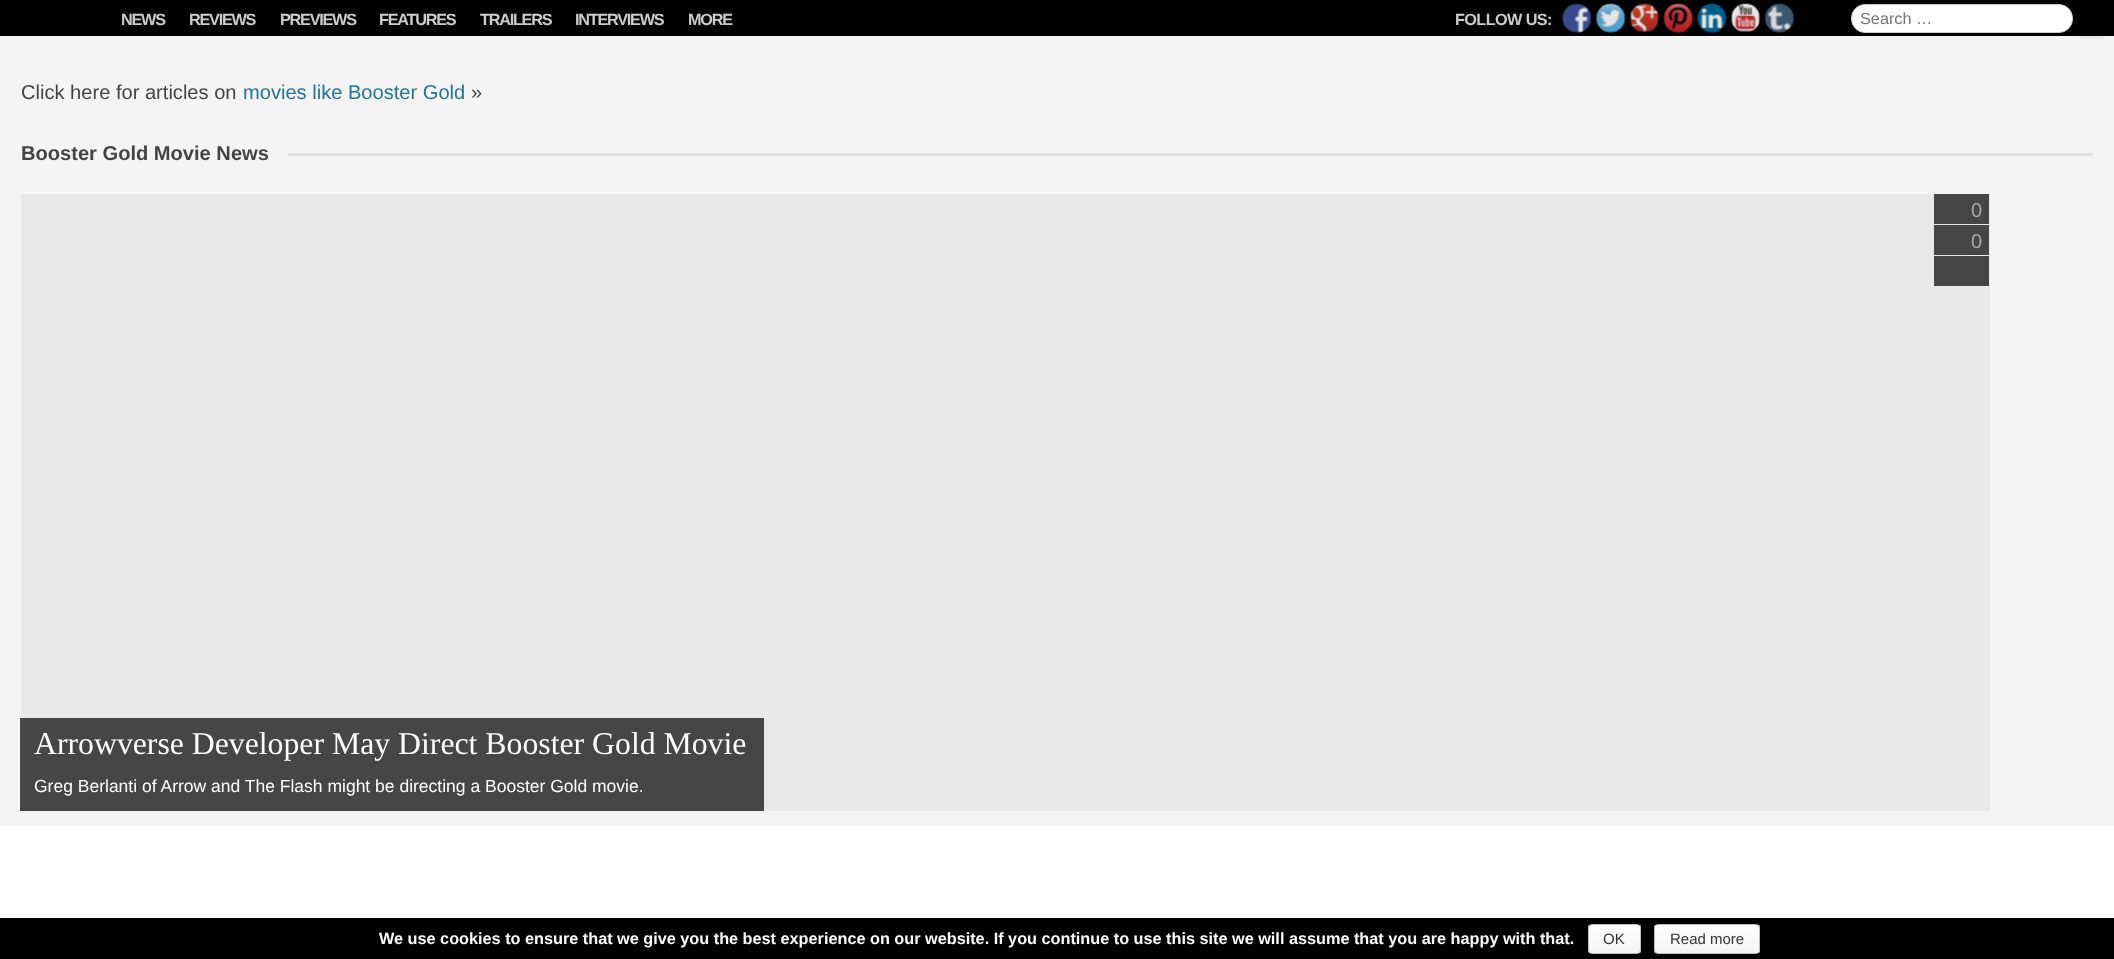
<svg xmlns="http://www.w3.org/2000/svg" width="2114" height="959">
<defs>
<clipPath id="clip1"><path d="M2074 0h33v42h-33zm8 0h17c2 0 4 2 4 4v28c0 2-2 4-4 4h-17c-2 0-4-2-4-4v-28c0-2 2-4 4-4z" clip-rule="evenodd"/></clipPath>
<clipPath id="clip2"><rect x="1588" y="924" width="53" height="30" rx="4"/></clipPath>
<linearGradient id="g1" gradientUnits="userSpaceOnUse" x1="1614" y1="925" x2="1614" y2="953"><stop offset="0" stop-color="#fefefe"/><stop offset="1" stop-color="#f4f4f4"/></linearGradient>
<clipPath id="clip3"><rect x="1654" y="924" width="106" height="30" rx="4"/></clipPath>
<linearGradient id="g2" gradientUnits="userSpaceOnUse" x1="1707" y1="925" x2="1707" y2="953"><stop offset="0" stop-color="#fefefe"/><stop offset="1" stop-color="#f4f4f4"/></linearGradient>
</defs>
<rect width="100%" height="100%" fill="#fff"/>
<rect width="2114" height="36" fill="#000"/>
<text x="121" y="25" style="font-family:Liberation Sans;font-size:16.25px;font-weight:bold;letter-spacing:-1.25px;fill:#ccc">NEWS</text>
<text x="189" y="25" style="font-family:Liberation Sans;font-size:16.25px;font-weight:bold;letter-spacing:-1.25px;fill:#ccc">REVIEWS</text>
<text x="280" y="25" style="font-family:Liberation Sans;font-size:16.25px;font-weight:bold;letter-spacing:-1.25px;fill:#ccc">PREVIEWS</text>
<text x="379" y="25" style="font-family:Liberation Sans;font-size:16.25px;font-weight:bold;letter-spacing:-1.25px;fill:#ccc">FEATURES</text>
<text x="480" y="25" style="font-family:Liberation Sans;font-size:16.25px;font-weight:bold;letter-spacing:-1.25px;fill:#ccc">TRAILERS</text>
<text x="575" y="25" style="font-family:Liberation Sans;font-size:16.25px;font-weight:bold;letter-spacing:-1.25px;fill:#ccc">INTERVIEWS</text>
<text x="688" y="25" style="font-family:Liberation Sans;font-size:16.25px;font-weight:bold;letter-spacing:-1.25px;fill:#ccc">MORE</text>
<text x="1455" y="25" style="font-family:Liberation Sans;font-size:16.25px;font-weight:bold;letter-spacing:-0.6px;fill:#ccc">FOLLOW US:</text>
<image x="1562" y="3" width="30" height="30" href="media/1.png"/>
<image x="1595" y="3" width="31" height="30" href="media/2.png"/>
<image x="1629" y="3" width="30" height="30" href="media/3.png"/>
<image x="1663" y="3" width="30" height="30" href="media/4.png"/>
<image x="1697" y="3" width="30" height="30" href="media/5.png"/>
<image x="1731" y="3" width="30" height="30" href="media/6.png"/>
<image x="1764" y="3" width="30" height="30" href="media/7.png"/>
<rect x="1851.5" y="4.5" width="221" height="28" rx="13.5" fill="#fff" stroke="#ccc"/>
<text x="1860" y="24" style="font-family:Liberation Sans;font-size:16.25px;fill:#757575">Search …</text>
<rect y="36" width="2114" height="790" fill="#f4f4f4"/>
<g clip-path="url(#clip1)">
<rect x="2078" y="1" width="25" height="37" rx="4" fill="#4040401a" filter="blur(1px)"/>
</g>
<text x="21" y="99" style="font-family:Liberation Sans;font-size:20.1px;fill:#444">Click here for articles on</text>
<text x="243" y="99" style="font-family:Liberation Sans;font-size:20.1px;fill:#21759b">movies like Booster Gold</text>
<text x="471" y="99" style="font-family:Liberation Sans;font-size:20.1px;fill:#444">»</text>
<text x="21" y="160" style="font-family:Liberation Sans;font-size:20.1px;font-weight:bold;fill:#444">Booster Gold Movie News</text>
<rect x="288" y="153" width="1805" height="3" fill="#e0e0e0"/>
<rect x="21" y="194" width="1969" height="617" fill="#e9e9e9"/>
<rect x="1934" y="194" width="55" height="30" fill="#464646"/>
<text x="1971" y="217" style="font-family:Liberation Sans;font-size:20.1px;fill:#a7a7a7">0</text>
<rect x="1934" y="225" width="55" height="30" fill="#464646"/>
<text x="1971" y="248" style="font-family:Liberation Sans;font-size:20.1px;fill:#a7a7a7">0</text>
<rect x="1934" y="256" width="55" height="30" fill="#464646"/>
<rect x="20" y="718" width="1" height="93" fill="#494949"/>
<rect x="21" y="718" width="743" height="93" fill="#464646"/>
<text x="34" y="754" style="font-family:Liberation Serif;font-size:31.75px;fill:#fff">Arrowverse Developer May Direct Booster Gold Movie</text>
<text x="34" y="792" style="font-family:Liberation Sans;font-size:17.5px;fill:#fff">Greg Berlanti of Arrow and The Flash might be directing a Booster Gold movie.</text>
<rect y="918" width="2114" height="41" fill="#000"/>
<text x="379" y="944" style="font-family:Liberation Sans;font-size:16.25px;font-weight:bold;fill:#fff">We use cookies to ensure that we give you the best experience on our website. If you continue to use this site we will assume that you are happy with that.</text>
<g clip-path="url(#clip2)">
<rect x="1588" y="925" width="53" height="28" fill="url(#g1)"/>
</g>
<rect x="1588.5" y="924.5" width="52" height="29" rx="3.5" fill="none" stroke="#bbb"/>
<text x="1603" y="944" style="font-family:Liberation Sans;font-size:15px;fill:#333">OK</text>
<g clip-path="url(#clip3)">
<rect x="1654" y="925" width="106" height="28" fill="url(#g2)"/>
</g>
<rect x="1654.5" y="924.5" width="105" height="29" rx="3.5" fill="none" stroke="#bbb"/>
<text x="1670" y="944" style="font-family:Liberation Sans;font-size:15px;fill:#333">Read more</text>
</svg>
